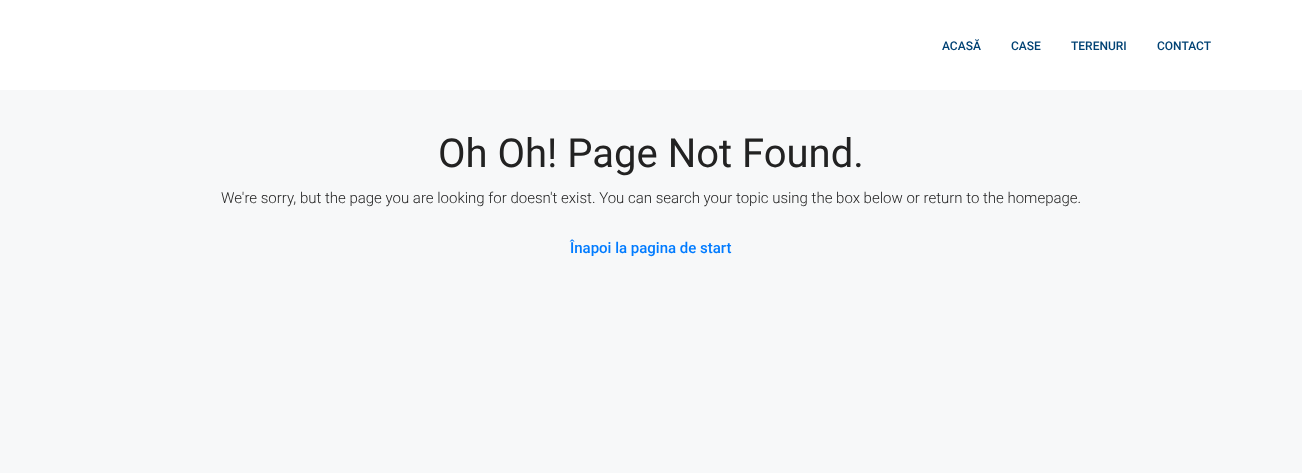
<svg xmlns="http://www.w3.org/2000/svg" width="1302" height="473">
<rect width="100%" height="100%" fill="#f7f8f9"/>
<rect width="1302" height="90" fill="#fff"/>
<text x="942" y="50" style="font-family:Roboto;font-size:12px;font-weight:500;fill:#004274">ACASĂ</text>
<text x="1011" y="50" style="font-family:Roboto;font-size:12px;font-weight:500;fill:#004274">CASE</text>
<text x="1071" y="50" style="font-family:Roboto;font-size:12px;font-weight:500;fill:#004274">TERENURI</text>
<text x="1157" y="50" style="font-family:Roboto;font-size:12px;font-weight:500;fill:#004274">CONTACT</text>
<text x="438" y="167" style="font-family:Roboto;font-size:40px;fill:#222">Oh Oh! Page Not Found.</text>
<text x="221" y="203" style="font-family:Roboto;font-size:15px;font-weight:300;fill:#222">We're sorry, but the page you are looking for doesn't exist. You can search your topic using the box below or return to the homepage.</text>
<text x="570" y="253" style="font-family:Roboto;font-size:15px;font-weight:500;fill:#007bff">Înapoi la pagina de start</text>
</svg>
